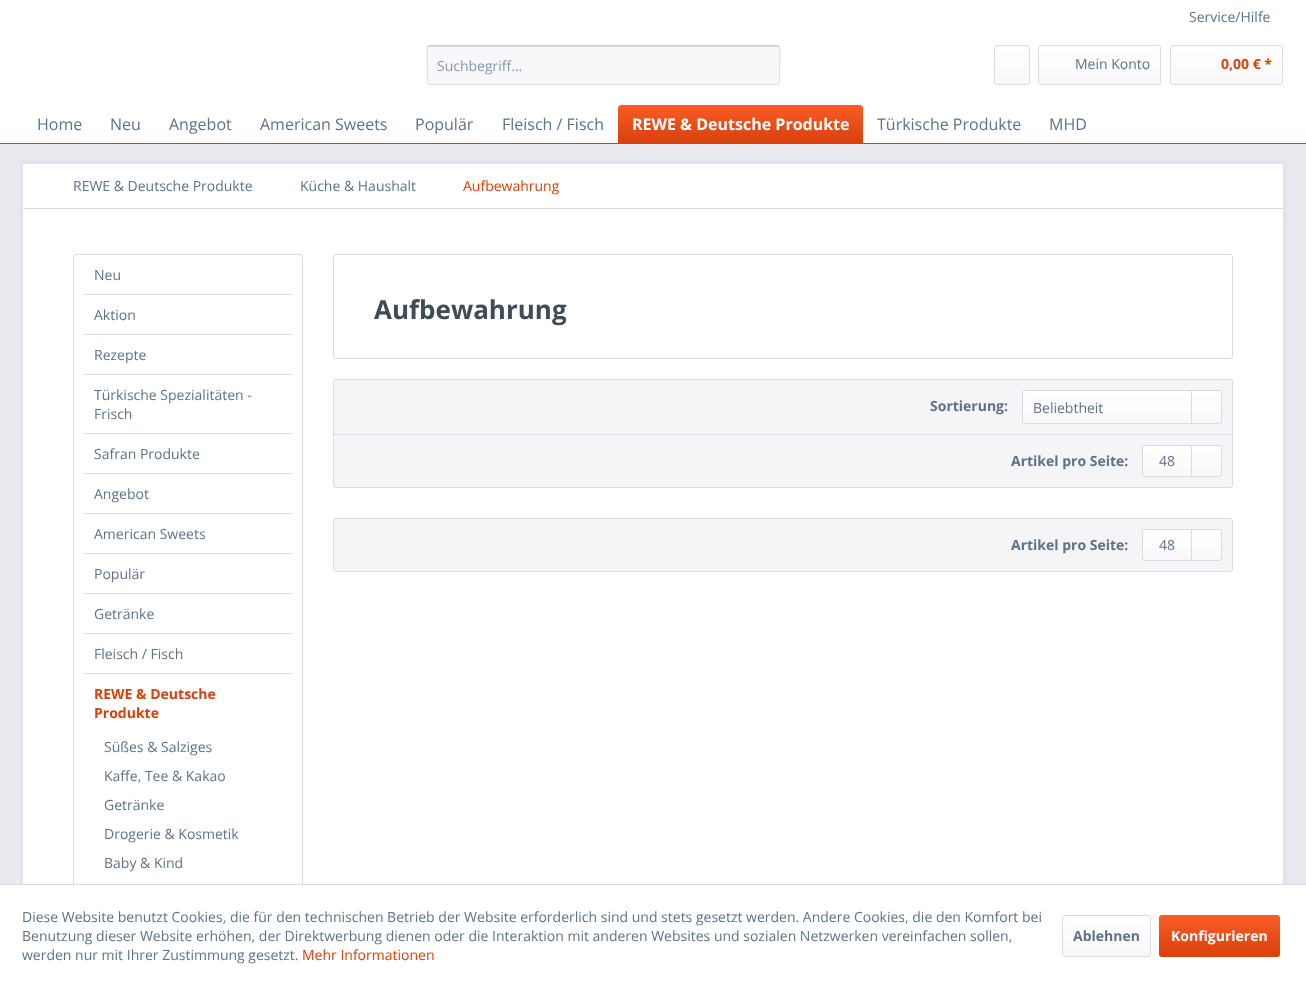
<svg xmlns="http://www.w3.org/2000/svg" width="1306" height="986">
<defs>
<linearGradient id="g1" gradientUnits="userSpaceOnUse" x1="1012" y1="46" x2="1012" y2="84"><stop offset="0" stop-color="#fff"/><stop offset="1" stop-color="#f8f8fa"/></linearGradient>
<linearGradient id="g2" gradientUnits="userSpaceOnUse" x1="1100" y1="46" x2="1100" y2="84"><stop offset="0" stop-color="#fff"/><stop offset="1" stop-color="#f8f8fa"/></linearGradient>
<linearGradient id="g3" gradientUnits="userSpaceOnUse" x1="1227" y1="46" x2="1227" y2="84"><stop offset="0" stop-color="#fff"/><stop offset="1" stop-color="#f8f8fa"/></linearGradient>
<linearGradient id="g4" gradientUnits="userSpaceOnUse" x1="741" y1="105" x2="741" y2="143"><stop offset="0" stop-color="#fa5d27"/><stop offset="1" stop-color="#d9400b"/></linearGradient>
<linearGradient id="g5" gradientUnits="userSpaceOnUse" x1="1122" y1="391" x2="1122" y2="423"><stop offset="0" stop-color="#fff"/><stop offset="1" stop-color="#f8f8fa"/></linearGradient>
<linearGradient id="g6" gradientUnits="userSpaceOnUse" x1="1182" y1="446" x2="1182" y2="476"><stop offset="0" stop-color="#fff"/><stop offset="1" stop-color="#f8f8fa"/></linearGradient>
<linearGradient id="g7" gradientUnits="userSpaceOnUse" x1="1182" y1="530" x2="1182" y2="560"><stop offset="0" stop-color="#fff"/><stop offset="1" stop-color="#f8f8fa"/></linearGradient>
<linearGradient id="g8" gradientUnits="userSpaceOnUse" x1="1107" y1="916" x2="1107" y2="956"><stop offset="0" stop-color="#fff"/><stop offset="1" stop-color="#f8f8fa"/></linearGradient>
<linearGradient id="g9" gradientUnits="userSpaceOnUse" x1="1220" y1="915" x2="1220" y2="957"><stop offset="0" stop-color="#fa5d27"/><stop offset="1" stop-color="#d9400b"/></linearGradient>
</defs>
<rect width="100%" height="100%" fill="#e9e9f0"/>
<rect width="1306" height="143" fill="#fff"/>
<text x="1189" y="22" style="font-family:Open Sans;font-size:14px;fill:#5f7285">Service/Hilfe</text>
<rect x="427" y="45" width="353" height="40" rx="3" fill="#f8f8fa"/>
<path d="M430 47h347c1 0 2 1 2 2c0-1 0-3-2-3h-347c-2 0-2 2-2 3c0-1 1-2 2-2z" fill="#dadae5"/>
<path d="M428 46l2-.5h347l2 .5" fill="none" stroke="#cbcbdb"/>
<path d="M779 46c1.5 2 .5 21 .5 24.5v6c0 1.5 1.5 8-2.5 8h-347c-4 0-2.5-6.5-2.5-8v-6c0-3.5-1-22.5 .5-24.5" fill="none" stroke="#dadae5"/>
<text x="437" y="71" style="font-family:Open Sans;font-size:14px;fill:#8798a9">Suchbegriff...</text>
<rect x="995" y="46" width="34" height="38" rx="2" fill="url(#g1)"/>
<rect x="994.5" y="45.5" width="35" height="39" rx="2.5" fill="none" stroke="#dadae5"/>
<rect x="1039" y="46" width="121" height="38" rx="2" fill="url(#g2)"/>
<rect x="1038.5" y="45.5" width="122" height="39" rx="2.5" fill="none" stroke="#dadae5"/>
<text x="1075" y="69" style="font-family:Open Sans;font-size:14px;fill:#5f7285">Mein Konto</text>
<rect x="1171" y="46" width="111" height="38" rx="2" fill="url(#g3)"/>
<rect x="1170.5" y="45.5" width="112" height="39" rx="2.5" fill="none" stroke="#dadae5"/>
<text x="1221" y="69" style="font-family:Open Sans;font-size:14px;font-weight:bold;fill:#d9400b">0,00 € *</text>
<rect y="143" width="1306" height="1" fill="#d9400b"/>
<text x="37" y="130" style="font-family:Open Sans;font-size:16px;fill:#5f7285">Home</text>
<text x="110" y="130" style="font-family:Open Sans;font-size:16px;fill:#5f7285">Neu</text>
<text x="169" y="130" style="font-family:Open Sans;font-size:16px;fill:#5f7285">Angebot</text>
<text x="260" y="130" style="font-family:Open Sans;font-size:16px;fill:#5f7285">American Sweets</text>
<text x="415" y="130" style="font-family:Open Sans;font-size:16px;fill:#5f7285">Populär</text>
<text x="502" y="130" style="font-family:Open Sans;font-size:16px;fill:#5f7285">Fleisch / Fisch</text>
<path d="M621 105h239c1.5 0 3 1.5 3 3v35h-245v-35c0-1.5 1.5-3 3-3z" fill="url(#g4)"/>
<text x="632" y="130" style="font-family:Open Sans;font-size:16px;font-weight:bold;fill:#fff">REWE &amp; Deutsche Produkte</text>
<text x="877" y="130" style="font-family:Open Sans;font-size:16px;fill:#5f7285">Türkische Produkte</text>
<text x="1049" y="130" style="font-family:Open Sans;font-size:16px;fill:#5f7285">MHD</text>
<rect x="22" y="163" width="1262" height="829" fill="#dadae5" filter="blur(2px)"/>
<rect x="23" y="164" width="1260" height="720" fill="#fff"/>
<rect x="23" y="208" width="1260" height="1" fill="#dadae5"/>
<text x="73" y="191" style="font-family:Open Sans;font-size:14px;fill:#5f7285">REWE &amp; Deutsche Produkte</text>
<text x="300" y="191" style="font-family:Open Sans;font-size:14px;fill:#5f7285">Küche &amp; Haushalt</text>
<text x="463" y="191" style="font-family:Open Sans;font-size:14px;fill:#d9400b">Aufbewahrung</text>
<rect x="73.5" y="254.5" width="229" height="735" rx="2.5" fill="none" stroke="#dadae5"/>
<rect x="84" y="294" width="208" height="1" fill="#dadae5"/>
<text x="94" y="280" style="font-family:Open Sans;font-size:14px;fill:#5f7285">Neu</text>
<rect x="84" y="334" width="208" height="1" fill="#dadae5"/>
<text x="94" y="320" style="font-family:Open Sans;font-size:14px;fill:#5f7285">Aktion</text>
<rect x="84" y="374" width="208" height="1" fill="#dadae5"/>
<text x="94" y="360" style="font-family:Open Sans;font-size:14px;fill:#5f7285">Rezepte</text>
<rect x="84" y="433" width="208" height="1" fill="#dadae5"/>
<text x="94" y="400" style="font-family:Open Sans;font-size:14px;fill:#5f7285">Türkische Spezialitäten -</text>
<text x="94" y="419" style="font-family:Open Sans;font-size:14px;fill:#5f7285">Frisch</text>
<rect x="84" y="473" width="208" height="1" fill="#dadae5"/>
<text x="94" y="459" style="font-family:Open Sans;font-size:14px;fill:#5f7285">Safran Produkte</text>
<rect x="84" y="513" width="208" height="1" fill="#dadae5"/>
<text x="94" y="499" style="font-family:Open Sans;font-size:14px;fill:#5f7285">Angebot</text>
<rect x="84" y="553" width="208" height="1" fill="#dadae5"/>
<text x="94" y="539" style="font-family:Open Sans;font-size:14px;fill:#5f7285">American Sweets</text>
<rect x="84" y="593" width="208" height="1" fill="#dadae5"/>
<text x="94" y="579" style="font-family:Open Sans;font-size:14px;fill:#5f7285">Populär</text>
<rect x="84" y="633" width="208" height="1" fill="#dadae5"/>
<text x="94" y="619" style="font-family:Open Sans;font-size:14px;fill:#5f7285">Getränke</text>
<rect x="84" y="673" width="208" height="1" fill="#dadae5"/>
<text x="94" y="659" style="font-family:Open Sans;font-size:14px;fill:#5f7285">Fleisch / Fisch</text>
<text x="94" y="699" style="font-family:Open Sans;font-size:14px;font-weight:bold;fill:#d9400b">REWE &amp; Deutsche</text>
<text x="94" y="718" style="font-family:Open Sans;font-size:14px;font-weight:bold;fill:#d9400b">Produkte</text>
<text x="104" y="752" style="font-family:Open Sans;font-size:14px;fill:#5f7285">Süßes &amp; Salziges</text>
<text x="104" y="781" style="font-family:Open Sans;font-size:14px;fill:#5f7285">Kaffe, Tee &amp; Kakao</text>
<text x="104" y="810" style="font-family:Open Sans;font-size:14px;fill:#5f7285">Getränke</text>
<text x="104" y="839" style="font-family:Open Sans;font-size:14px;fill:#5f7285">Drogerie &amp; Kosmetik</text>
<text x="104" y="868" style="font-family:Open Sans;font-size:14px;fill:#5f7285">Baby &amp; Kind</text>
<rect x="333.5" y="254.5" width="899" height="104" rx="2.5" fill="none" stroke="#dadae5"/>
<text x="374" y="319" style="font-family:Open Sans;font-size:26px;font-weight:bold;fill:#3f4c58">Aufbewahrung</text>
<rect x="333.5" y="379.5" width="899" height="108" rx="2.5" fill="#f5f5f8" stroke="#dadae5"/>
<text x="930" y="411" style="font-family:Open Sans;font-size:14px;font-weight:bold;fill:#5f7285">Sortierung:</text>
<rect x="1023" y="391" width="198" height="32" rx="2" fill="url(#g5)"/>
<rect x="1022.5" y="390.5" width="199" height="33" rx="2.5" fill="none" stroke="#dadae5"/>
<text x="1033" y="413" style="font-family:Open Sans;font-size:14px;fill:#5f7285">Beliebtheit</text>
<rect x="1191" y="391" width="1" height="33" fill="#dadae5"/>
<rect x="334" y="434" width="898" height="1" fill="#dadae5"/>
<text x="1011" y="466" style="font-family:Open Sans;font-size:14px;font-weight:bold;fill:#5f7285">Artikel pro Seite:</text>
<rect x="1143" y="446" width="78" height="30" rx="2" fill="url(#g6)"/>
<rect x="1142.5" y="445.5" width="79" height="31" rx="2.5" fill="none" stroke="#dadae5"/>
<text x="1159" y="466" style="font-family:Open Sans;font-size:14px;fill:#5f7285">48</text>
<rect x="1191" y="446" width="1" height="31" fill="#dadae5"/>
<rect x="333.5" y="518.5" width="899" height="53" rx="2.5" fill="#f5f5f8" stroke="#dadae5"/>
<text x="1011" y="550" style="font-family:Open Sans;font-size:14px;font-weight:bold;fill:#5f7285">Artikel pro Seite:</text>
<rect x="1143" y="530" width="78" height="30" rx="2" fill="url(#g7)"/>
<rect x="1142.5" y="529.5" width="79" height="31" rx="2.5" fill="none" stroke="#dadae5"/>
<text x="1159" y="550" style="font-family:Open Sans;font-size:14px;fill:#5f7285">48</text>
<rect x="1191" y="530" width="1" height="31" fill="#dadae5"/>
<rect y="885" width="1306" height="101" fill="#fff"/>
<rect y="884" width="1306" height="1" fill="#dadae5"/>
<text x="22" y="922" style="font-family:Open Sans;font-size:14px;fill:#5f7285">Diese Website benutzt Cookies, die für den technischen Betrieb der Website erforderlich sind und stets gesetzt werden. Andere Cookies, die den Komfort bei</text>
<text x="22" y="941" style="font-family:Open Sans;font-size:14px;fill:#5f7285">Benutzung dieser Website erhöhen, der Direktwerbung dienen oder die Interaktion mit anderen Websites und sozialen Netzwerken vereinfachen sollen,</text>
<text x="22" y="960" style="font-family:Open Sans;font-size:14px;fill:#5f7285">werden nur mit Ihrer Zustimmung gesetzt.</text>
<text x="302" y="960" style="font-family:Open Sans;font-size:14px;fill:#d9400b">Mehr Informationen</text>
<rect x="1063" y="916" width="87" height="40" rx="2" fill="url(#g8)"/>
<rect x="1062.5" y="915.5" width="88" height="41" rx="2.5" fill="none" stroke="#dadae5"/>
<text x="1073" y="941" style="font-family:Open Sans;font-size:14px;font-weight:bold;fill:#5f7285">Ablehnen</text>
<rect x="1159" y="915" width="121" height="42" rx="3" fill="url(#g9)"/>
<text x="1171" y="941" style="font-family:Open Sans;font-size:14px;font-weight:bold;fill:#fff">Konfigurieren</text>
</svg>
